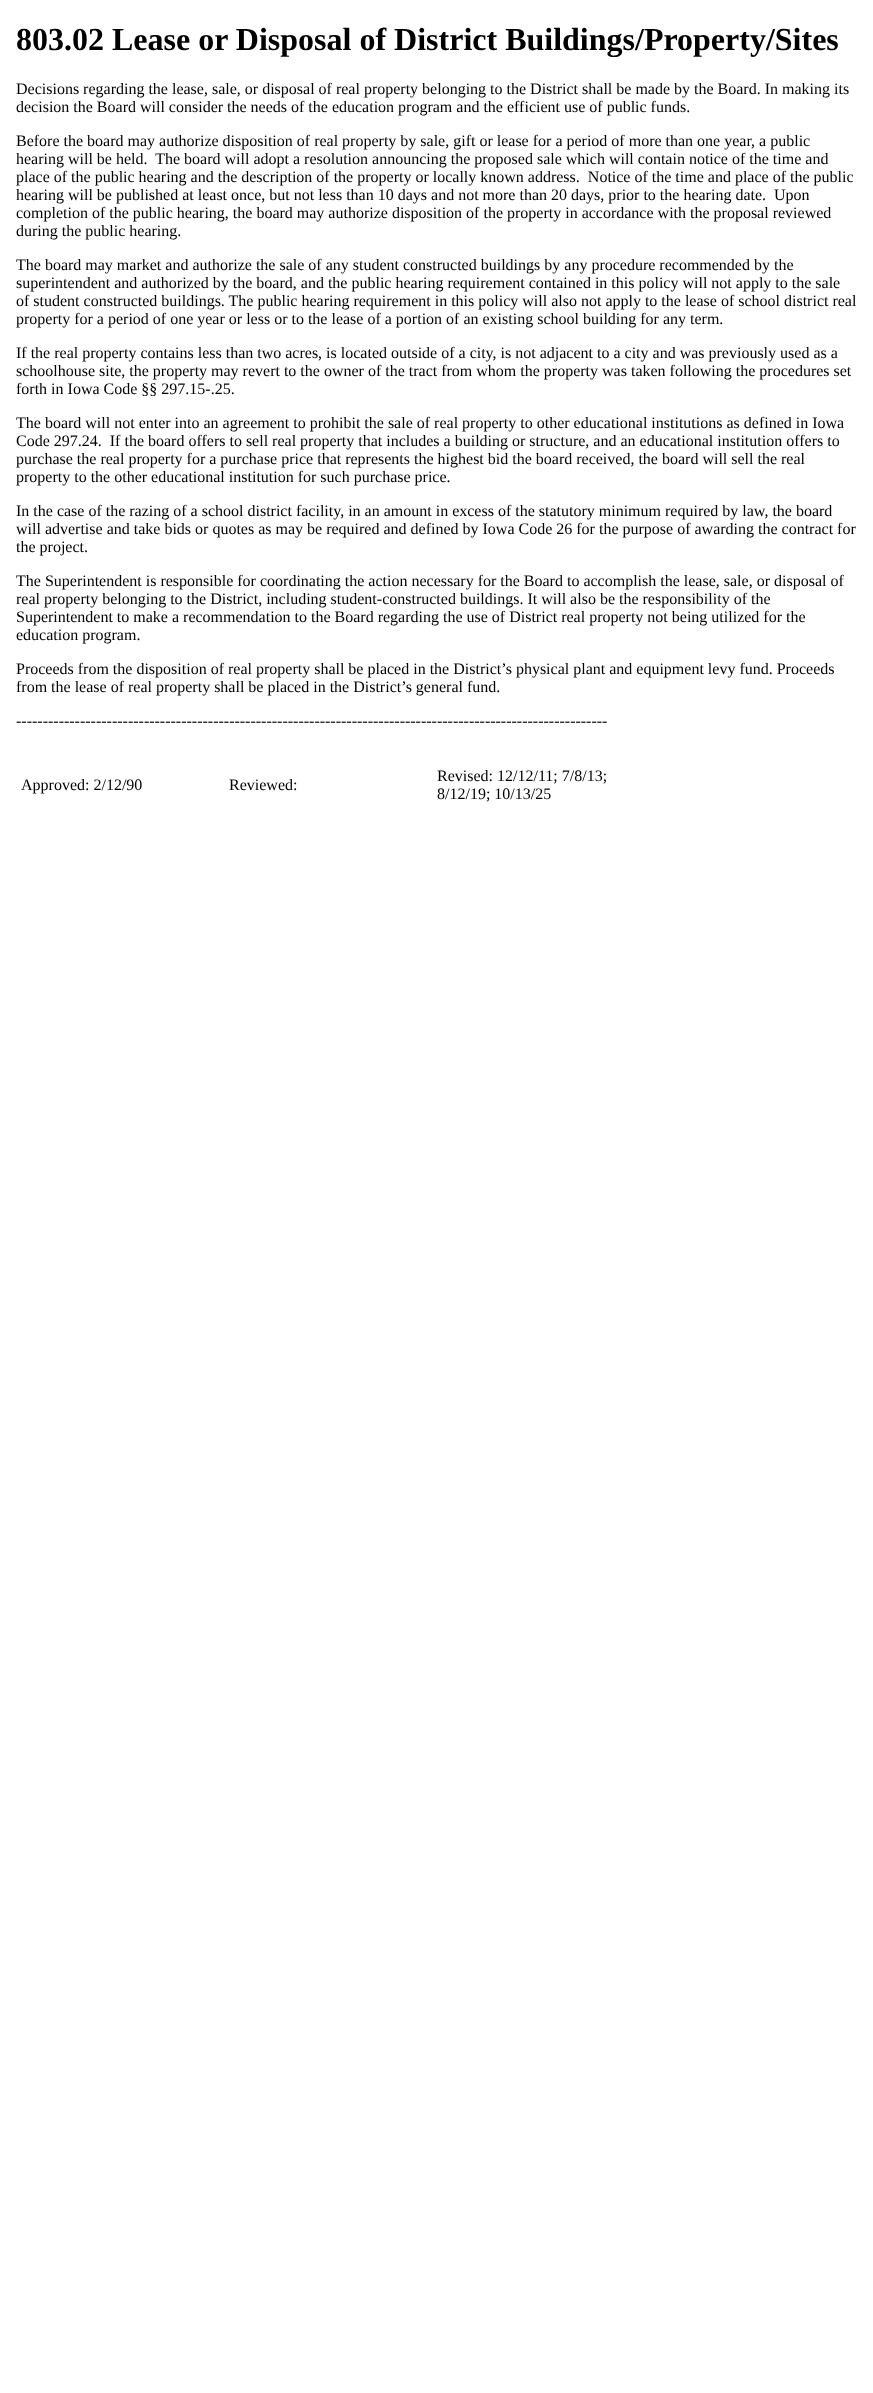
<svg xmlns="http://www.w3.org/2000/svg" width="873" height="2393">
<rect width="100%" height="100%" fill="#fff"/>
<text x="16" y="50" style="font-family:Liberation Serif;font-size:32px;font-weight:bold;fill:#000">803.02 Lease or Disposal of District Buildings/Property/Sites</text>
<text x="16" y="94" style="font-family:Liberation Serif;font-size:16px;fill:#000">Decisions regarding the lease, sale, or disposal of real property belonging to the District shall be made by the Board. In making its</text>
<text x="16" y="112" style="font-family:Liberation Serif;font-size:16px;fill:#000">decision the Board will consider the needs of the education program and the efficient use of public funds.</text>
<text x="16" y="146" style="font-family:Liberation Serif;font-size:16px;fill:#000">Before the board may authorize disposition of real property by sale, gift or lease for a period of more than one year, a public</text>
<text x="16" y="164" style="font-family:Liberation Serif;font-size:16px;fill:#000" xml:space="preserve">hearing will be held.  The board will adopt a resolution announcing the proposed sale which will contain notice of the time and</text>
<text x="16" y="182" style="font-family:Liberation Serif;font-size:16px;fill:#000" xml:space="preserve">place of the public hearing and the description of the property or locally known address.  Notice of the time and place of the public</text>
<text x="16" y="200" style="font-family:Liberation Serif;font-size:16px;fill:#000" xml:space="preserve">hearing will be published at least once, but not less than 10 days and not more than 20 days, prior to the hearing date.  Upon</text>
<text x="16" y="218" style="font-family:Liberation Serif;font-size:16px;fill:#000">completion of the public hearing, the board may authorize disposition of the property in accordance with the proposal reviewed</text>
<text x="16" y="236" style="font-family:Liberation Serif;font-size:16px;fill:#000">during the public hearing.</text>
<text x="16" y="270" style="font-family:Liberation Serif;font-size:16px;fill:#000">The board may market and authorize the sale of any student constructed buildings by any procedure recommended by the</text>
<text x="16" y="288" style="font-family:Liberation Serif;font-size:16px;fill:#000">superintendent and authorized by the board, and the public hearing requirement contained in this policy will not apply to the sale</text>
<text x="16" y="306" style="font-family:Liberation Serif;font-size:16px;fill:#000">of student constructed buildings. The public hearing requirement in this policy will also not apply to the lease of school district real</text>
<text x="16" y="324" style="font-family:Liberation Serif;font-size:16px;fill:#000">property for a period of one year or less or to the lease of a portion of an existing school building for any term.</text>
<text x="16" y="358" style="font-family:Liberation Serif;font-size:16px;fill:#000">If the real property contains less than two acres, is located outside of a city, is not adjacent to a city and was previously used as a</text>
<text x="16" y="376" style="font-family:Liberation Serif;font-size:16px;fill:#000">schoolhouse site, the property may revert to the owner of the tract from whom the property was taken following the procedures set</text>
<text x="16" y="394" style="font-family:Liberation Serif;font-size:16px;fill:#000">forth in Iowa Code §§ 297.15-.25.</text>
<text x="16" y="428" style="font-family:Liberation Serif;font-size:16px;fill:#000">The board will not enter into an agreement to prohibit the sale of real property to other educational institutions as defined in Iowa</text>
<text x="16" y="446" style="font-family:Liberation Serif;font-size:16px;fill:#000" xml:space="preserve">Code 297.24.  If the board offers to sell real property that includes a building or structure, and an educational institution offers to</text>
<text x="16" y="464" style="font-family:Liberation Serif;font-size:16px;fill:#000">purchase the real property for a purchase price that represents the highest bid the board received, the board will sell the real</text>
<text x="16" y="482" style="font-family:Liberation Serif;font-size:16px;fill:#000">property to the other educational institution for such purchase price.</text>
<text x="16" y="516" style="font-family:Liberation Serif;font-size:16px;fill:#000">In the case of the razing of a school district facility, in an amount in excess of the statutory minimum required by law, the board</text>
<text x="16" y="534" style="font-family:Liberation Serif;font-size:16px;fill:#000">will advertise and take bids or quotes as may be required and defined by Iowa Code 26 for the purpose of awarding the contract for</text>
<text x="16" y="552" style="font-family:Liberation Serif;font-size:16px;fill:#000">the project.</text>
<text x="16" y="586" style="font-family:Liberation Serif;font-size:16px;fill:#000">The Superintendent is responsible for coordinating the action necessary for the Board to accomplish the lease, sale, or disposal of</text>
<text x="16" y="604" style="font-family:Liberation Serif;font-size:16px;fill:#000">real property belonging to the District, including student-constructed buildings. It will also be the responsibility of the</text>
<text x="16" y="622" style="font-family:Liberation Serif;font-size:16px;fill:#000">Superintendent to make a recommendation to the Board regarding the use of District real property not being utilized for the</text>
<text x="16" y="640" style="font-family:Liberation Serif;font-size:16px;fill:#000">education program.</text>
<text x="16" y="674" style="font-family:Liberation Serif;font-size:16px;fill:#000">Proceeds from the disposition of real property shall be placed in the District’s physical plant and equipment levy fund. Proceeds</text>
<text x="16" y="692" style="font-family:Liberation Serif;font-size:16px;fill:#000">from the lease of real property shall be placed in the District’s general fund.</text>
<text x="16" y="726" style="font-family:Liberation Serif;font-size:16px;fill:#000">---------------------------------------------------------------------------------------------------------------</text>
<text x="21" y="790" style="font-family:Liberation Serif;font-size:16px;fill:#000">Approved: 2/12/90</text>
<text x="229" y="790" style="font-family:Liberation Serif;font-size:16px;fill:#000">Reviewed:</text>
<text x="437" y="781" style="font-family:Liberation Serif;font-size:16px;fill:#000">Revised: 12/12/11; 7/8/13;</text>
<text x="437" y="799" style="font-family:Liberation Serif;font-size:16px;fill:#000">8/12/19; 10/13/25</text>
</svg>
